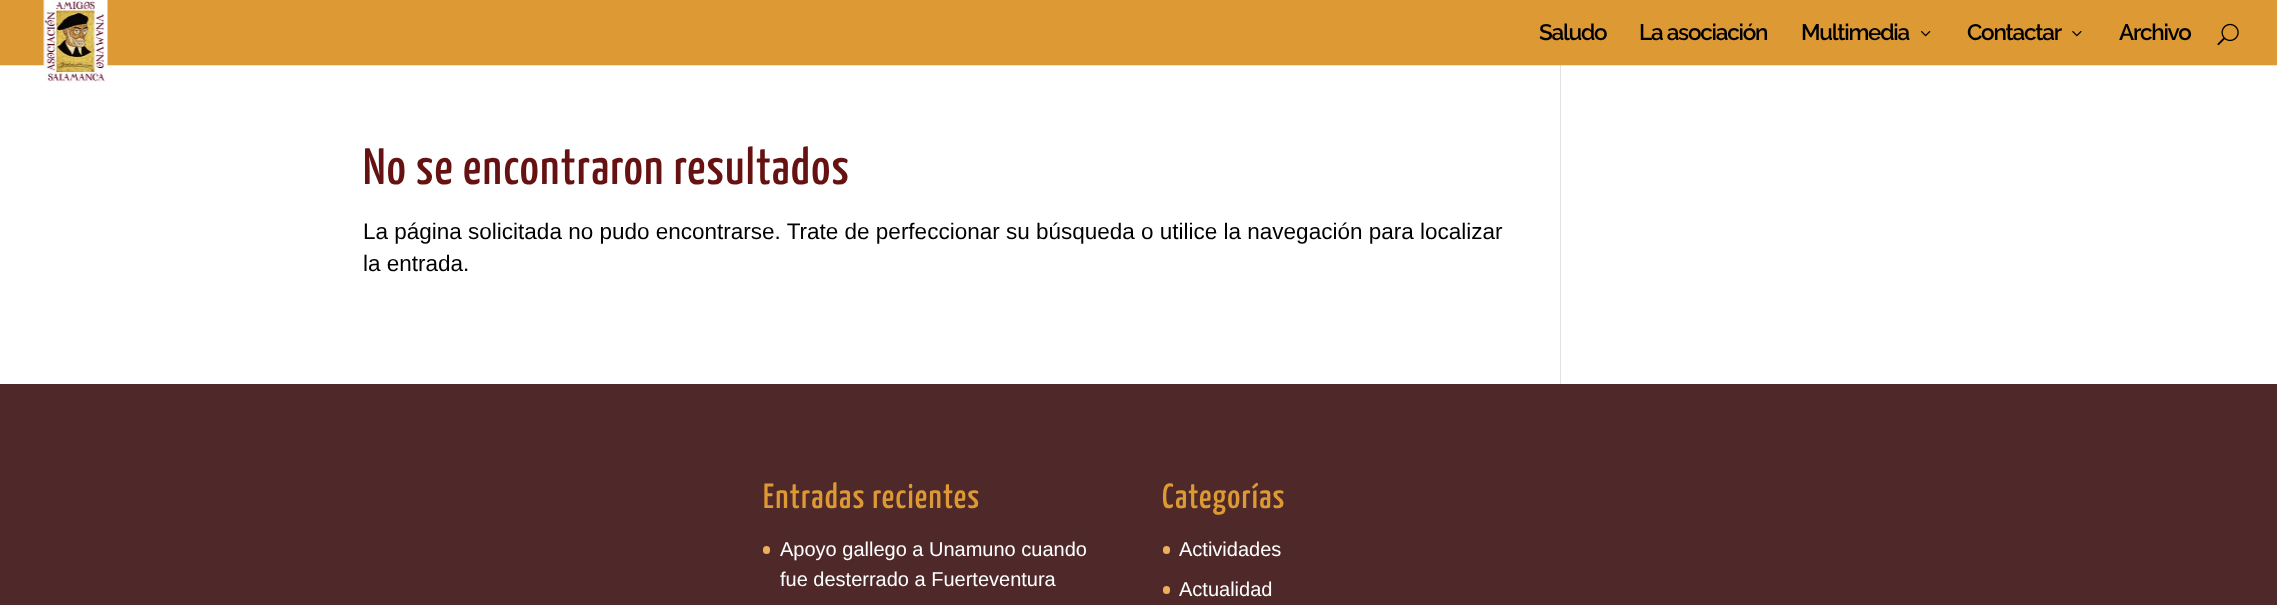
<svg xmlns="http://www.w3.org/2000/svg" width="2277" height="605">
<rect width="100%" height="100%" fill="#fff"/>
<rect x="1560" y="65" width="1" height="319" fill="#e2e2e2"/>
<path d="M0 65v1h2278v-65v64z" fill="#0000001a"/>
<rect width="2277" height="65" fill="#d93"/>
<image x="43" y="0" width="65" height="83" href="media/1.png"/>
<text x="1539" y="40" style="font-family:Raleway;font-size:22.5px;font-weight:600;letter-spacing:-1.25px;fill:#000">Saludo</text>
<text x="1639" y="40" style="font-family:Raleway;font-size:22.5px;font-weight:600;letter-spacing:-1.25px;fill:#000">La asociación</text>
<text x="1801" y="40" style="font-family:Raleway;font-size:22.5px;font-weight:600;letter-spacing:-1.25px;fill:#000">Multimedia</text>
<image x="1921" y="31" width="10" height="6" href="media/2.png"/>
<text x="1967" y="40" style="font-family:Raleway;font-size:22.5px;font-weight:600;letter-spacing:-1.25px;fill:#000">Contactar</text>
<image x="2072" y="31" width="10" height="6" href="media/3.png"/>
<text x="2119" y="40" style="font-family:Raleway;font-size:22.5px;font-weight:600;letter-spacing:-1.25px;fill:#000">Archivo</text>
<image x="2217" y="23" width="22" height="23" href="media/4.png"/>
<text x="363" y="184" style="font-family:Yanone Kaffeesatz;font-size:51.25px;font-weight:500;letter-spacing:1.25px;fill:#661212">No se encontraron resultados</text>
<text x="363" y="239" style="font-family:Arimo;font-size:22.5px;fill:#000">La página solicitada no pudo encontrarse. Trate de perfeccionar su búsqueda o utilice la navegación para localizar</text>
<text x="363" y="271" style="font-family:Arimo;font-size:22.5px;fill:#000">la entrada.</text>
<rect y="384" width="2277" height="221" fill="#4f2929"/>
<text x="763" y="508" style="font-family:Yanone Kaffeesatz;font-size:35px;font-weight:500;letter-spacing:1.25px;fill:#d93">Entradas recientes</text>
<rect x="763" y="546" width="7" height="8" rx="3.5" fill="#edb059"/>
<text x="780" y="556" style="font-family:Arimo;font-size:20px;fill:#fff">Apoyo gallego a Unamuno cuando</text>
<text x="780" y="586" style="font-family:Arimo;font-size:20px;fill:#fff">fue desterrado a Fuerteventura</text>
<text x="1162" y="508" style="font-family:Yanone Kaffeesatz;font-size:35px;font-weight:500;letter-spacing:1.25px;fill:#d93">Categorías</text>
<rect x="1163" y="546" width="7" height="8" rx="3.5" fill="#edb059"/>
<text x="1179" y="556" style="font-family:Arimo;font-size:20px;fill:#fff">Actividades</text>
<rect x="1163" y="586" width="7" height="8" rx="3.5" fill="#edb059"/>
<text x="1179" y="596" style="font-family:Arimo;font-size:20px;fill:#fff">Actualidad</text>
</svg>
